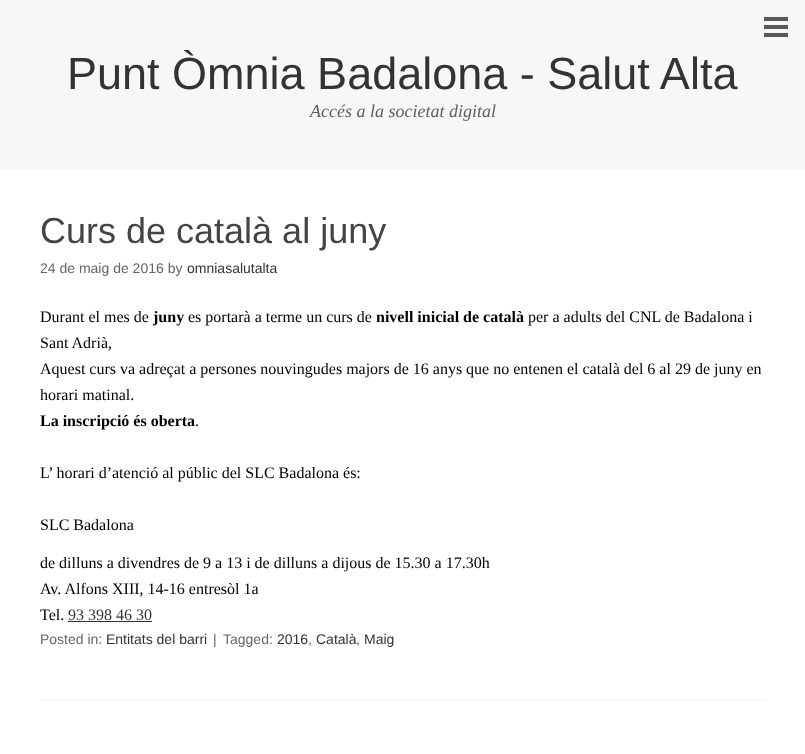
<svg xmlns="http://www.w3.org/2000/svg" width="805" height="754">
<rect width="100%" height="100%" fill="#fff"/>
<rect width="805" height="169" fill="#f7f7f7"/>
<rect x="764" y="17" width="24" height="4" fill="#5a5a5a"/>
<rect x="764" y="33" width="24" height="4" fill="#5a5a5a"/>
<rect x="764" y="25" width="24" height="4" fill="#5a5a5a"/>
<text x="67" y="89" style="font-family:Liberation Sans;font-size:45px;fill:#333">Punt Òmnia Badalona - Salut Alta</text>
<text x="310" y="117" style="font-family:Liberation Serif;font-size:18px;font-style:italic;fill:#606060">Accés a la societat digital</text>
<text x="40" y="243" style="font-family:Liberation Sans;font-size:36px;fill:#444">Curs de català al juny</text>
<text x="40" y="273" style="font-family:Liberation Sans;font-size:14px;fill:#666">24 de maig de 2016 by</text>
<text x="187" y="273" style="font-family:Liberation Sans;font-size:14px;fill:#333">omniasalutalta</text>
<text x="40" y="322" style="font-family:Liberation Serif;font-size:16px;fill:#000">Durant el mes de</text>
<text x="153" y="322" style="font-family:Liberation Serif;font-size:16px;font-weight:bold;fill:#000">juny</text>
<text x="188" y="322" style="font-family:Liberation Serif;font-size:16px;fill:#000">es portarà a terme un curs de</text>
<text x="376" y="322" style="font-family:Liberation Serif;font-size:16px;font-weight:bold;fill:#000">nivell inicial de català</text>
<text x="528" y="322" style="font-family:Liberation Serif;font-size:16px;fill:#000">per a adults del CNL de Badalona i</text>
<text x="40" y="348" style="font-family:Liberation Serif;font-size:16px;fill:#000">Sant Adrià,</text>
<text x="40" y="374" style="font-family:Liberation Serif;font-size:16px;fill:#000">Aquest curs va adreçat a persones nouvingudes majors de 16 anys que no entenen el català del 6 al 29 de juny en</text>
<text x="40" y="400" style="font-family:Liberation Serif;font-size:16px;fill:#000">horari matinal.</text>
<text x="40" y="426" style="font-family:Liberation Serif;font-size:16px;font-weight:bold;fill:#000">La inscripció és oberta</text>
<text x="195" y="426" style="font-family:Liberation Serif;font-size:16px;fill:#000">.</text>
<text x="40" y="478" style="font-family:Liberation Serif;font-size:16px;fill:#000">L’ horari d’atenció al públic del SLC Badalona és:</text>
<text x="40" y="530" style="font-family:Liberation Serif;font-size:16px;fill:#000">SLC Badalona</text>
<text x="40" y="568" style="font-family:Liberation Serif;font-size:16px;fill:#000">de dilluns a divendres de 9 a 13 i de dilluns a dijous de 15.30 a 17.30h</text>
<text x="40" y="594" style="font-family:Liberation Serif;font-size:16px;fill:#000">Av. Alfons XIII, 14-16 entresòl 1a</text>
<text x="40" y="620" style="font-family:Liberation Serif;font-size:16px;fill:#000">Tel.</text>
<text x="68" y="620" style="font-family:Liberation Serif;font-size:16px;fill:#333">93 398 46 30</text>
<rect x="68" y="621" width="84" height="1" fill="#333"/>
<text x="40" y="644" style="font-family:Liberation Sans;font-size:14px;fill:#666">Posted in:</text>
<text x="106" y="644" style="font-family:Liberation Sans;font-size:14px;fill:#333">Entitats del barri</text>
<text x="213" y="644" style="font-family:Liberation Sans;font-size:14px;fill:#666">|</text>
<text x="223" y="644" style="font-family:Liberation Sans;font-size:14px;fill:#666">Tagged:</text>
<text x="277" y="644" style="font-family:Liberation Sans;font-size:14px;fill:#333">2016</text>
<text x="308" y="644" style="font-family:Liberation Sans;font-size:14px;fill:#666">,</text>
<text x="316" y="644" style="font-family:Liberation Sans;font-size:14px;fill:#333">Català</text>
<text x="356" y="644" style="font-family:Liberation Sans;font-size:14px;fill:#666">,</text>
<text x="364" y="644" style="font-family:Liberation Sans;font-size:14px;fill:#333">Maig</text>
<rect x="40" y="700" width="725" height="1" fill="#f5f5f5"/>
</svg>
